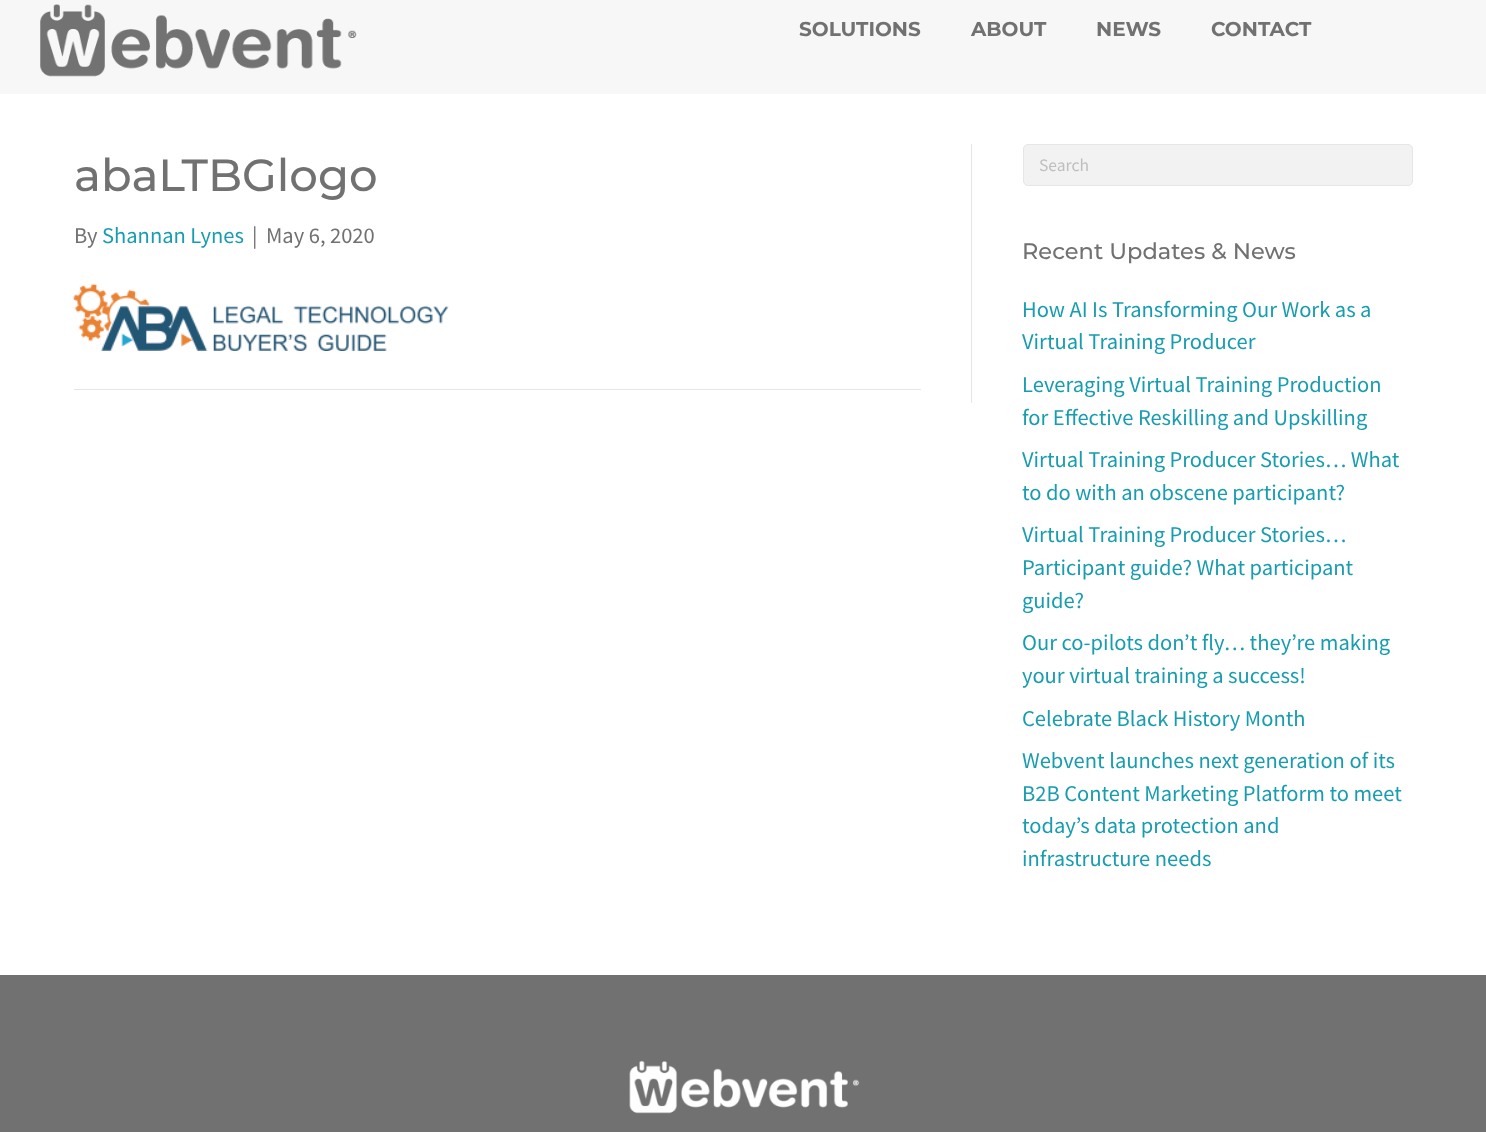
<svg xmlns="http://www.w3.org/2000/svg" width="1486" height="1132">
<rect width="100%" height="100%" fill="#fff"/>
<rect width="1486" height="94" fill="#f7f7f7"/>
<image x="40" y="4" width="317" height="73" href="media/1.png"/>
<text x="799" y="36" style="font-family:Montserrat;font-size:20px;font-weight:bold;fill:#727172">SOLUTIONS</text>
<text x="971" y="36" style="font-family:Montserrat;font-size:20px;font-weight:bold;fill:#727172">ABOUT</text>
<text x="1096" y="36" style="font-family:Montserrat;font-size:20px;font-weight:bold;fill:#727172">NEWS</text>
<text x="1211" y="36" style="font-family:Montserrat;font-size:20px;font-weight:bold;fill:#727172">CONTACT</text>
<rect x="971" y="144" width="1" height="259" fill="#e6e6e6"/>
<text x="74" y="191" style="font-family:Montserrat;font-size:45px;font-weight:500;fill:#727172">abaLTBGlogo</text>
<text x="74" y="243" style="font-family:Source Sans Pro;font-size:22.5px;fill:#727172">By</text>
<text x="102" y="243" style="font-family:Source Sans Pro;font-size:22.5px;fill:#189daf">Shannan Lynes</text>
<text x="252" y="243" style="font-family:Source Sans Pro;font-size:22.5px;fill:#727172">|</text>
<text x="266" y="243" style="font-family:Source Sans Pro;font-size:22.5px;fill:#727172">May 6, 2020</text>
<image x="73" y="283" width="376" height="68" href="media/2.png"/>
<rect x="74" y="389" width="847" height="1" fill="#e6e6e6"/>
<rect x="1023.5" y="144.5" width="389" height="41" rx="4.5" fill="#f2f2f2" stroke="#e6e6e6"/>
<text x="1039" y="171" style="font-family:Source Sans Pro;font-size:17.5px;fill:#bfbebf">Search</text>
<text x="1022" y="259" style="font-family:Montserrat;font-size:22.5px;font-weight:500;fill:#727172">Recent Updates &amp; News</text>
<text x="1022" y="317" style="font-family:Source Sans Pro;font-size:22.5px;fill:#189daf">How AI Is Transforming Our Work as a</text>
<text x="1022" y="349" style="font-family:Source Sans Pro;font-size:22.5px;fill:#189daf">Virtual Training Producer</text>
<text x="1022" y="392" style="font-family:Source Sans Pro;font-size:22.5px;fill:#189daf">Leveraging Virtual Training Production</text>
<text x="1022" y="425" style="font-family:Source Sans Pro;font-size:22.5px;fill:#189daf">for Effective Reskilling and Upskilling</text>
<text x="1022" y="467" style="font-family:Source Sans Pro;font-size:22.5px;fill:#189daf">Virtual Training Producer Stories… What</text>
<text x="1022" y="500" style="font-family:Source Sans Pro;font-size:22.5px;fill:#189daf">to do with an obscene participant?</text>
<text x="1022" y="542" style="font-family:Source Sans Pro;font-size:22.5px;fill:#189daf">Virtual Training Producer Stories…</text>
<text x="1022" y="575" style="font-family:Source Sans Pro;font-size:22.5px;fill:#189daf">Participant guide? What participant</text>
<text x="1022" y="608" style="font-family:Source Sans Pro;font-size:22.5px;fill:#189daf">guide?</text>
<text x="1022" y="650" style="font-family:Source Sans Pro;font-size:22.5px;fill:#189daf">Our co-pilots don’t fly… they’re making</text>
<text x="1022" y="683" style="font-family:Source Sans Pro;font-size:22.5px;fill:#189daf">your virtual training a success!</text>
<text x="1022" y="726" style="font-family:Source Sans Pro;font-size:22.5px;fill:#189daf">Celebrate Black History Month</text>
<text x="1022" y="768" style="font-family:Source Sans Pro;font-size:22.5px;fill:#189daf">Webvent launches next generation of its</text>
<text x="1022" y="801" style="font-family:Source Sans Pro;font-size:22.5px;fill:#189daf">B2B Content Marketing Platform to meet</text>
<text x="1022" y="833" style="font-family:Source Sans Pro;font-size:22.5px;fill:#189daf">today’s data protection and</text>
<text x="1022" y="866" style="font-family:Source Sans Pro;font-size:22.5px;fill:#189daf">infrastructure needs</text>
<rect y="975" width="1486" height="157" fill="#727172"/>
<image x="629" y="1060" width="231" height="54" href="media/3.png"/>
</svg>
